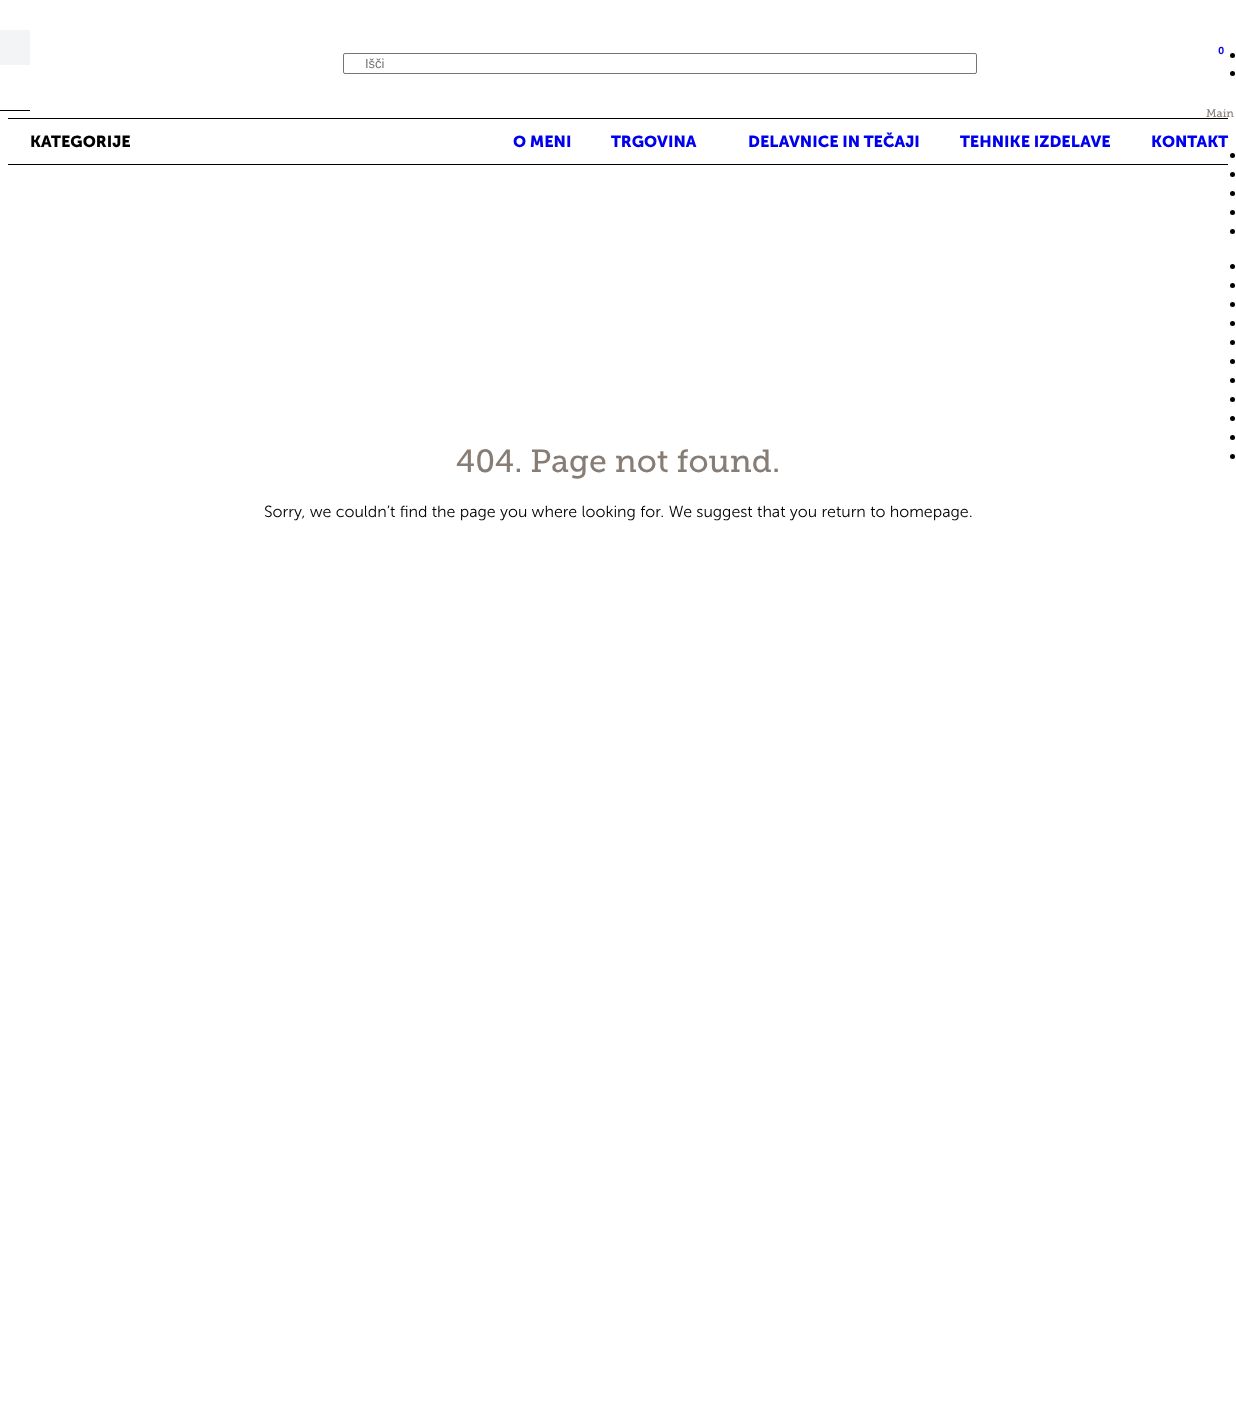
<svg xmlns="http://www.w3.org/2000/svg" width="1236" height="1424">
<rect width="100%" height="100%" fill="#fff"/>
<rect y="30" width="30" height="35" fill="#f3f4f5"/>
<rect y="110" width="30" height="1" fill="#000"/>
<rect x="8" y="118" width="1220" height="1" fill="#000"/>
<text x="1218" y="54" style="font-family:'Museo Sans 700';font-size:10px;font-weight:600;fill:#00e">0</text>
<rect x="343.5" y="53.5" width="633" height="20" rx="1.5" fill="none" stroke="#767676"/>
<text x="365" y="68" style="font-family:Liberation Sans;font-size:13px;fill:#757575">Išči</text>
<rect x="8" y="164" width="1220" height="1" fill="#000"/>
<text x="30" y="147" style="font-family:'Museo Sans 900';font-size:16px;font-weight:bold;fill:#000">KATEGORIJE</text>
<text x="513" y="147" style="font-family:'Museo Sans 900';font-size:16px;font-weight:bold;fill:#00e">O MENI</text>
<text x="611" y="147" style="font-family:'Museo Sans 900';font-size:16px;font-weight:bold;fill:#00e">TRGOVINA</text>
<text x="748" y="147" style="font-family:'Museo Sans 900';font-size:16px;font-weight:bold;fill:#00e">DELAVNICE IN TEČAJI</text>
<text x="960" y="147" style="font-family:'Museo Sans 900';font-size:16px;font-weight:bold;fill:#00e">TEHNIKE IZDELAVE</text>
<text x="1151" y="147" style="font-family:'Museo Sans 900';font-size:16px;font-weight:bold;fill:#00e">KONTAKT</text>
<text x="456" y="472" style="font-family:'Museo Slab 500';font-size:32px;fill:#877d74">404. Page not found.</text>
<text x="264" y="517" style="font-family:'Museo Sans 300';font-size:16px;font-weight:300;fill:#000">Sorry, we couldn’t find the page you where looking for. We suggest that you return to homepage.</text>
<circle cx="1232.5" cy="55.5" r="2.5" fill="#000"/>
<circle cx="1232.5" cy="73.5" r="2.5" fill="#000"/>
<text x="1206" y="117" style="font-family:'Museo Slab 500';font-size:11px;fill:#877d74">Main</text>
<circle cx="1232.5" cy="155.5" r="2.5" fill="#000"/>
<circle cx="1232.5" cy="174.5" r="2.5" fill="#000"/>
<circle cx="1232.5" cy="193.5" r="2.5" fill="#000"/>
<circle cx="1232.5" cy="212.5" r="2.5" fill="#000"/>
<circle cx="1232.5" cy="231.5" r="2.5" fill="#000"/>
<circle cx="1232.5" cy="266.5" r="2.5" fill="#000"/>
<circle cx="1232.5" cy="285.5" r="2.5" fill="#000"/>
<circle cx="1232.5" cy="304.5" r="2.5" fill="#000"/>
<circle cx="1232.5" cy="323.5" r="2.5" fill="#000"/>
<circle cx="1232.5" cy="342.5" r="2.5" fill="#000"/>
<circle cx="1232.5" cy="361.5" r="2.5" fill="#000"/>
<circle cx="1232.5" cy="380.5" r="2.5" fill="#000"/>
<circle cx="1232.5" cy="399.5" r="2.5" fill="#000"/>
<circle cx="1232.5" cy="418.5" r="2.5" fill="#000"/>
<circle cx="1232.5" cy="437.5" r="2.5" fill="#000"/>
<circle cx="1232.5" cy="456.5" r="2.5" fill="#000"/>
</svg>
